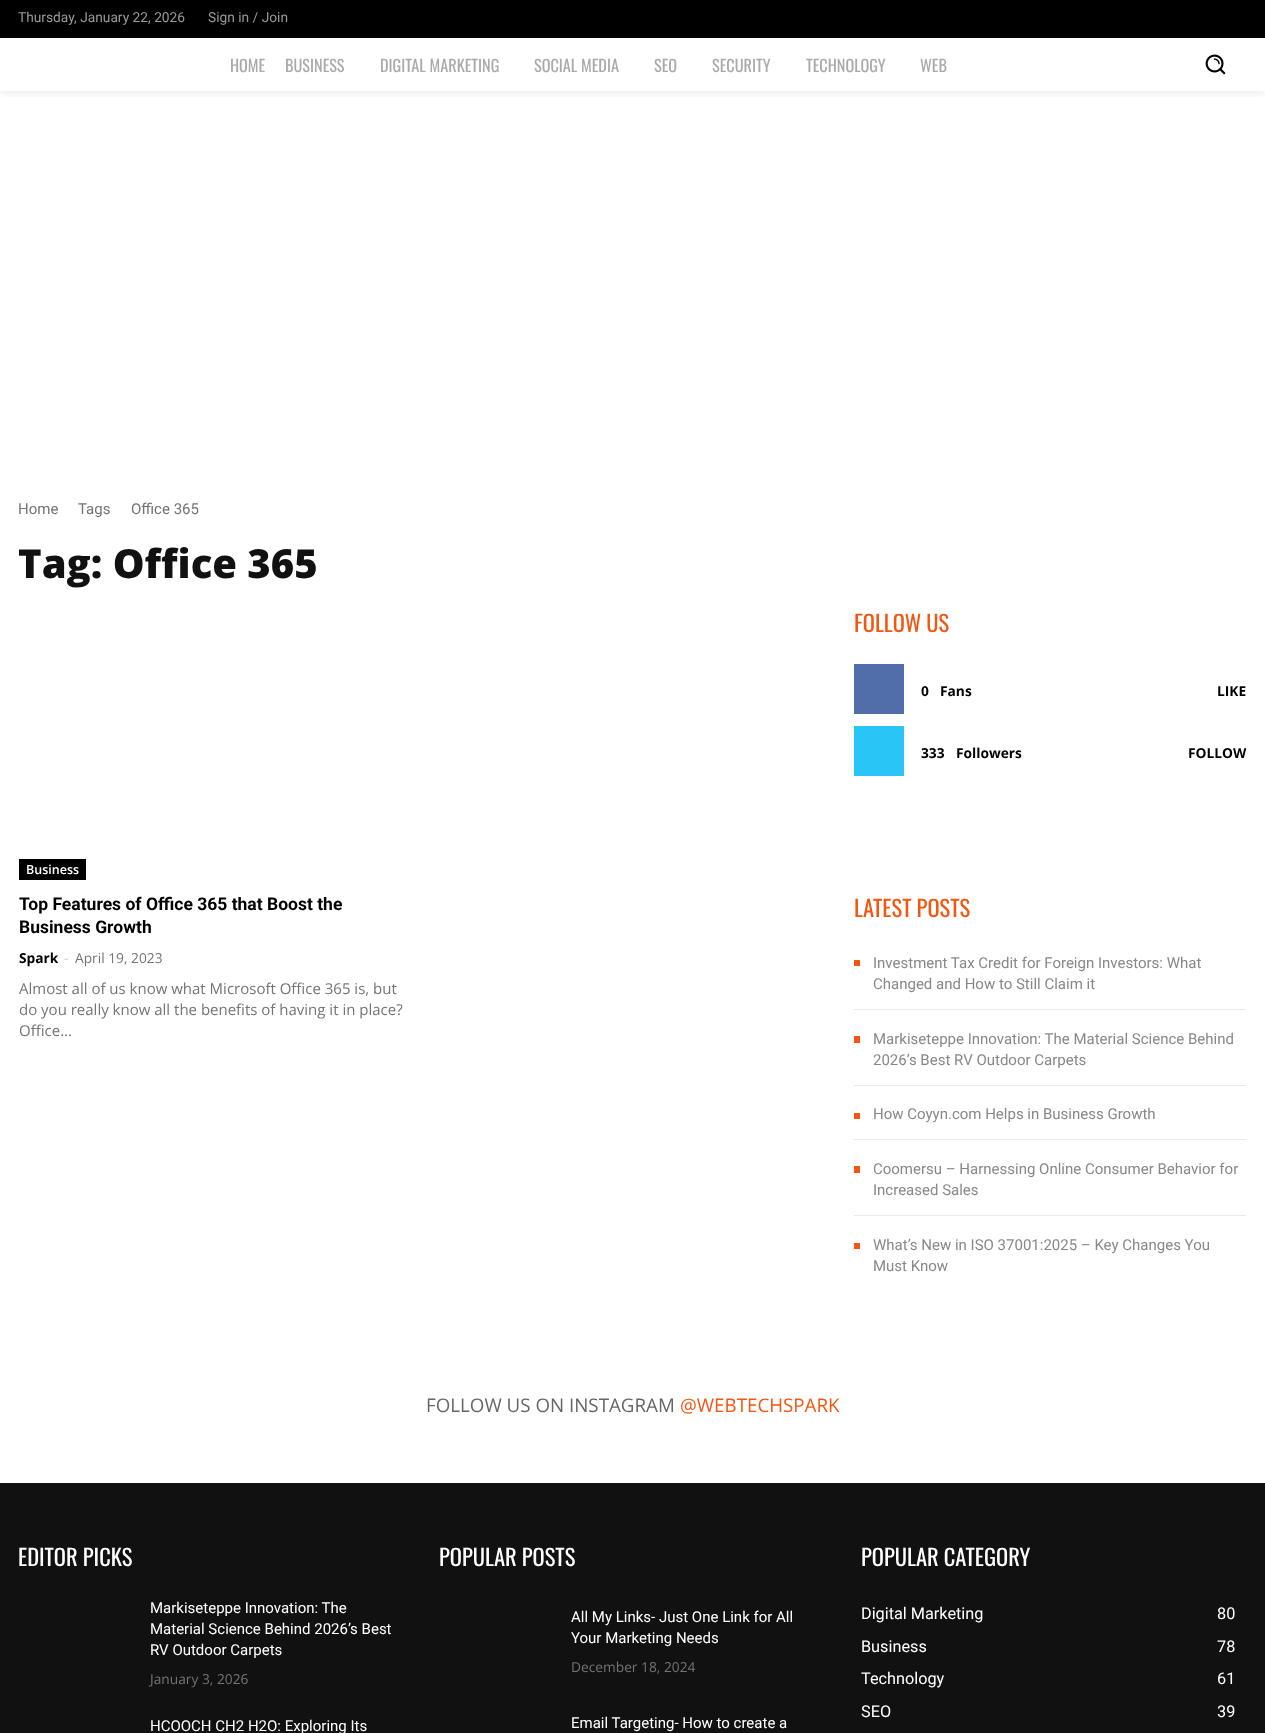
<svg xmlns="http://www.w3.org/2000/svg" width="1265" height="1733">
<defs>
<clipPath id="clip1"><rect x="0" y="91" width="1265" height="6"/></clipPath>
</defs>
<rect width="100%" height="100%" fill="#fff"/>
<g clip-path="url(#clip1)">
<rect width="1265" height="91" fill="#0000001f" filter="blur(6px)"/>
</g>
<rect width="1265" height="38" fill="#000"/>
<text x="18" y="22" style="font-family:Roboto;font-size:13.75px;fill:#999">Thursday, January 22, 2026</text>
<text x="208" y="22" style="font-family:Roboto;font-size:13.75px;fill:#999">Sign in / Join</text>
<text x="230" y="72" style="font-family:Oswald;font-size:16.25px;fill:#aaa">HOME</text>
<text x="285" y="72" style="font-family:Oswald;font-size:16.25px;fill:#aaa">BUSINESS</text>
<text x="380" y="72" style="font-family:Oswald;font-size:16.25px;fill:#aaa">DIGITAL MARKETING</text>
<text x="534" y="72" style="font-family:Oswald;font-size:16.25px;fill:#aaa">SOCIAL MEDIA</text>
<text x="654" y="72" style="font-family:Oswald;font-size:16.25px;fill:#aaa">SEO</text>
<text x="712" y="72" style="font-family:Oswald;font-size:16.25px;fill:#aaa">SECURITY</text>
<text x="806" y="72" style="font-family:Oswald;font-size:16.25px;fill:#aaa">TECHNOLOGY</text>
<text x="920" y="72" style="font-family:Oswald;font-size:16.25px;fill:#aaa">WEB</text>
<image x="1205" y="54" width="21" height="21" href="media/1.png"/>
<text x="18" y="514" style="font-family:Roboto;font-size:15px;fill:#747474">Home</text>
<text x="78" y="514" style="font-family:Roboto;font-size:15px;fill:#747474">Tags</text>
<text x="131" y="514" style="font-family:Roboto;font-size:15px;fill:#747474">Office 365</text>
<text x="18" y="578" style="font-family:Open Sans;font-size:40px;font-weight:800;fill:#111">Tag: Office 365</text>
<rect x="19" y="859" width="67" height="21" fill="#000"/>
<text x="26" y="874" style="font-family:Open Sans;font-size:12.5px;font-weight:600;fill:#fff">Business</text>
<text x="19" y="910" style="font-family:Roboto;font-size:17.5px;font-weight:bold;fill:#000">Top Features of Office 365 that Boost the</text>
<text x="19" y="933" style="font-family:Roboto;font-size:17.5px;font-weight:bold;fill:#000">Business Growth</text>
<text x="19" y="963" style="font-family:Open Sans;font-size:13.75px;font-weight:bold;fill:#000">Spark</text>
<text x="64" y="963" style="font-family:Open Sans;font-size:13.75px;fill:#ccc">-</text>
<text x="75" y="963" style="font-family:Open Sans;font-size:13.75px;fill:#747474">April 19, 2023</text>
<text x="19" y="994" style="font-family:Open Sans;font-size:15px;fill:#747474">Almost all of us know what Microsoft Office 365 is, but</text>
<text x="19" y="1015" style="font-family:Open Sans;font-size:15px;fill:#747474">do you really know all the benefits of having it in place?</text>
<text x="19" y="1036" style="font-family:Open Sans;font-size:15px;fill:#747474">Office...</text>
<text x="854" y="632" style="font-family:Oswald;font-size:22.5px;fill:#f45511">FOLLOW US</text>
<rect x="854" y="664" width="50" height="50" fill="#516eab"/>
<text x="921" y="696" style="font-family:Open Sans;font-size:13.75px;font-weight:bold;fill:#000">0</text>
<text x="940" y="696" style="font-family:Open Sans;font-size:13.75px;font-weight:bold;fill:#000">Fans</text>
<text x="1217" y="696" style="font-family:Open Sans;font-size:13.75px;font-weight:bold;fill:#000">LIKE</text>
<rect x="854" y="726" width="50" height="50" fill="#29c5f6"/>
<text x="921" y="758" style="font-family:Open Sans;font-size:13.75px;font-weight:bold;fill:#000">333</text>
<text x="956" y="758" style="font-family:Open Sans;font-size:13.75px;font-weight:bold;fill:#000">Followers</text>
<text x="1188" y="758" style="font-family:Open Sans;font-size:13.75px;font-weight:bold;fill:#000">FOLLOW</text>
<text x="854" y="917" style="font-family:Oswald;font-size:22.5px;fill:#f45511">LATEST POSTS</text>
<rect x="854" y="960" width="6" height="6" fill="#f45511"/>
<text x="873" y="968" style="font-family:Roboto;font-size:15px;fill:#888">Investment Tax Credit for Foreign Investors: What</text>
<text x="873" y="989" style="font-family:Roboto;font-size:15px;fill:#888">Changed and How to Still Claim it</text>
<rect x="854" y="1009" width="392" height="1" fill="#eaeaea"/>
<rect x="854" y="1036" width="6" height="7" fill="#f45511"/>
<text x="873" y="1044" style="font-family:Roboto;font-size:15px;fill:#888">Markiseteppe Innovation: The Material Science Behind</text>
<text x="873" y="1065" style="font-family:Roboto;font-size:15px;fill:#888">2026’s Best RV Outdoor Carpets</text>
<rect x="854" y="1085" width="392" height="1" fill="#eaeaea"/>
<rect x="854" y="1113" width="6" height="6" fill="#f45511"/>
<text x="873" y="1119" style="font-family:Roboto;font-size:15px;fill:#888">How Coyyn.com Helps in Business Growth</text>
<rect x="854" y="1139" width="392" height="1" fill="#eaeaea"/>
<rect x="854" y="1166" width="6" height="7" fill="#f45511"/>
<text x="873" y="1174" style="font-family:Roboto;font-size:15px;fill:#888">Coomersu – Harnessing Online Consumer Behavior for</text>
<text x="873" y="1195" style="font-family:Roboto;font-size:15px;fill:#888">Increased Sales</text>
<rect x="854" y="1215" width="392" height="1" fill="#eaeaea"/>
<rect x="854" y="1243" width="6" height="6" fill="#f45511"/>
<text x="873" y="1250" style="font-family:Roboto;font-size:15px;fill:#888">What’s New in ISO 37001:2025 – Key Changes You</text>
<text x="873" y="1271" style="font-family:Roboto;font-size:15px;fill:#888">Must Know</text>
<text x="426" y="1412" style="font-family:Open Sans;font-size:18.75px;fill:#666">FOLLOW US ON INSTAGRAM</text>
<text x="680" y="1412" style="font-family:Open Sans;font-size:18.75px;fill:#f45511">@WEBTECHSPARK</text>
<rect y="1483" width="1265" height="250" fill="#111"/>
<text x="18" y="1566" style="font-family:Oswald;font-size:22.5px;fill:#fff">EDITOR PICKS</text>
<text x="150" y="1613" style="font-family:Roboto;font-size:15px;fill:#fff">Markiseteppe Innovation: The</text>
<text x="150" y="1634" style="font-family:Roboto;font-size:15px;fill:#fff">Material Science Behind 2026’s Best</text>
<text x="150" y="1655" style="font-family:Roboto;font-size:15px;fill:#fff">RV Outdoor Carpets</text>
<text x="150" y="1684" style="font-family:Open Sans;font-size:13.75px;fill:#747474">January 3, 2026</text>
<text x="150" y="1731" style="font-family:Roboto;font-size:15px;fill:#fff">HCOOCH CH2 H2O: Exploring Its</text>
<text x="439" y="1566" style="font-family:Oswald;font-size:22.5px;fill:#fff">POPULAR POSTS</text>
<text x="571" y="1622" style="font-family:Roboto;font-size:15px;fill:#fff">All My Links- Just One Link for All</text>
<text x="571" y="1643" style="font-family:Roboto;font-size:15px;fill:#fff">Your Marketing Needs</text>
<text x="571" y="1672" style="font-family:Open Sans;font-size:13.75px;fill:#747474">December 18, 2024</text>
<text x="571" y="1728" style="font-family:Roboto;font-size:15px;fill:#fff">Email Targeting- How to create a</text>
<text x="861" y="1566" style="font-family:Oswald;font-size:22.5px;fill:#fff">POPULAR CATEGORY</text>
<text x="861" y="1619" style="font-family:Roboto;font-size:16.25px;fill:#fff">Digital Marketing</text>
<text x="1217" y="1619" style="font-family:Roboto;font-size:16.25px;fill:#fff">80</text>
<text x="861" y="1652" style="font-family:Roboto;font-size:16.25px;fill:#fff">Business</text>
<text x="1217" y="1652" style="font-family:Roboto;font-size:16.25px;fill:#fff">78</text>
<text x="861" y="1684" style="font-family:Roboto;font-size:16.25px;fill:#fff">Technology</text>
<text x="1217" y="1684" style="font-family:Roboto;font-size:16.25px;fill:#fff">61</text>
<text x="861" y="1717" style="font-family:Roboto;font-size:16.25px;fill:#fff">SEO</text>
<text x="1217" y="1717" style="font-family:Roboto;font-size:16.25px;fill:#fff">39</text>
</svg>
